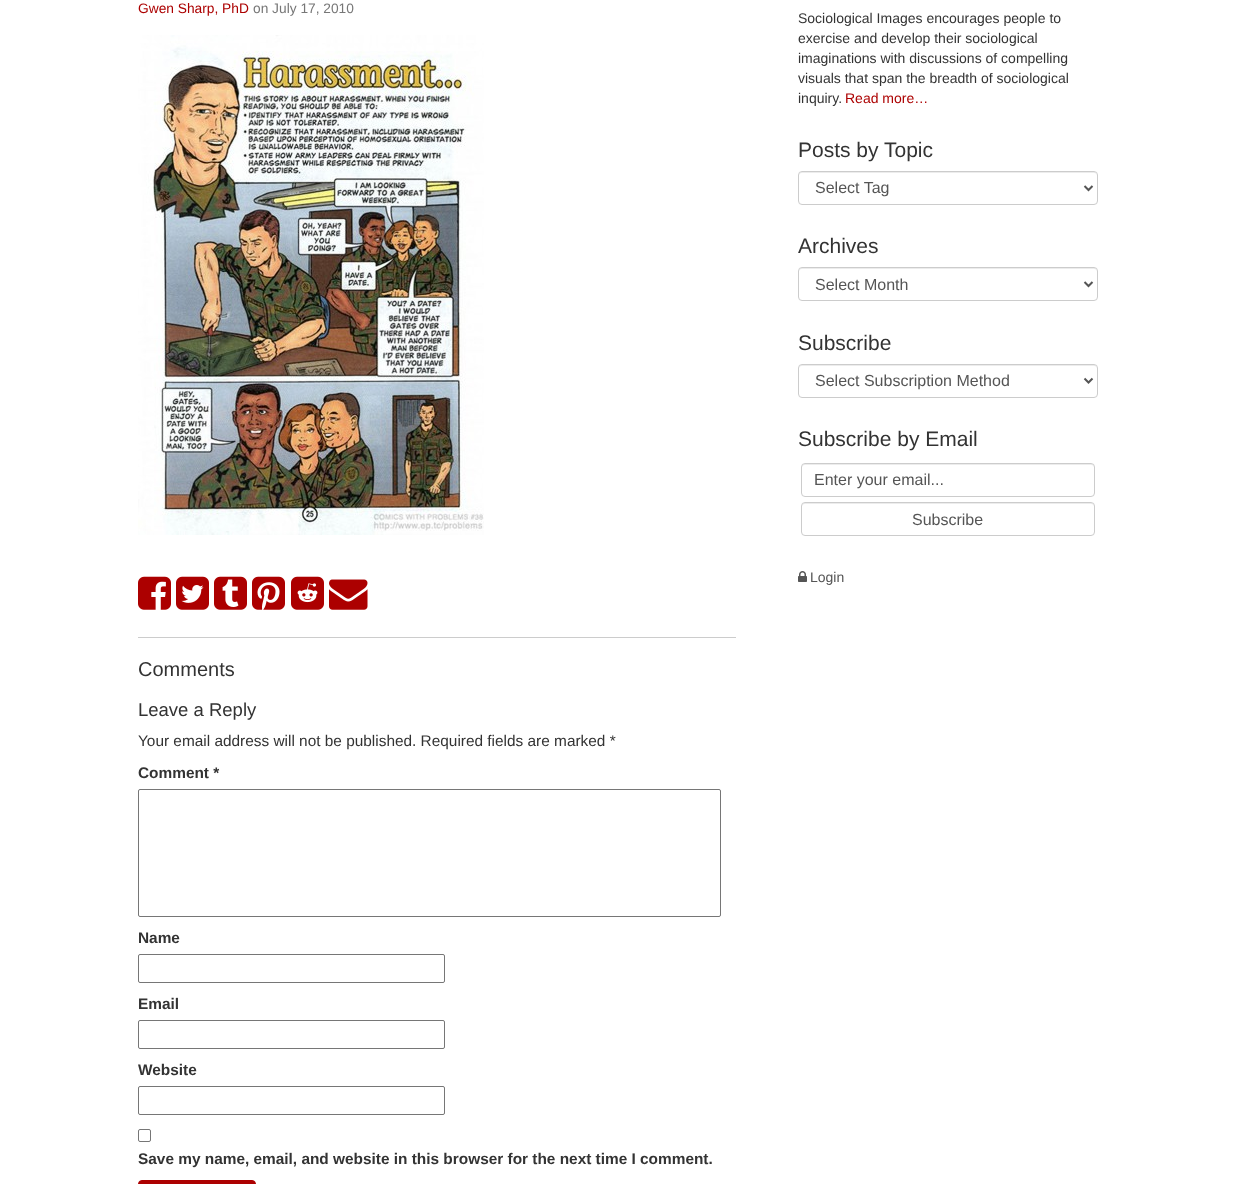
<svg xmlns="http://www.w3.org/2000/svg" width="1235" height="1184">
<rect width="100%" height="100%" fill="#fff"/>
<text x="138" y="13" style="font-family:Liberation Sans;font-size:13.75px;fill:#ac0000">Gwen Sharp, PhD</text>
<text x="253" y="13" style="font-family:Liberation Sans;font-size:13.75px;fill:#777">on July 17, 2010</text>
<image x="138" y="35" width="346" height="500" href="media/1.png"/>
<image x="138" y="576" width="33" height="34" href="media/2.png"/>
<image x="176" y="576" width="33" height="34" href="media/3.png"/>
<image x="214" y="576" width="33" height="34" href="media/4.png"/>
<image x="252" y="576" width="33" height="34" href="media/5.png"/>
<image x="291" y="576" width="33" height="34" href="media/6.png"/>
<image x="329" y="579" width="39" height="31" href="media/7.png"/>
<rect x="138" y="637" width="598" height="1" fill="#ccc"/>
<text x="138" y="676" style="font-family:Liberation Sans;font-size:20px;fill:#333">Comments</text>
<text x="138" y="716" style="font-family:Liberation Sans;font-size:18.5px;fill:#333">Leave a Reply</text>
<text x="138" y="746" style="font-family:Liberation Sans;font-size:15.4px;fill:#333">Your email address will not be published. Required fields are marked *</text>
<text x="138" y="778" style="font-family:Liberation Sans;font-size:15.4px;font-weight:bold;fill:#333">Comment *</text>
<rect x="138.5" y="789.5" width="582" height="127" rx="1.5" fill="none" stroke="#767676"/>
<text x="138" y="943" style="font-family:Liberation Sans;font-size:15.4px;font-weight:bold;fill:#333">Name</text>
<rect x="138.5" y="954.5" width="306" height="28" rx="1.5" fill="none" stroke="#767676"/>
<text x="138" y="1009" style="font-family:Liberation Sans;font-size:15.4px;font-weight:bold;fill:#333">Email</text>
<rect x="138.5" y="1020.5" width="306" height="28" rx="1.5" fill="none" stroke="#767676"/>
<text x="138" y="1075" style="font-family:Liberation Sans;font-size:15.4px;font-weight:bold;fill:#333">Website</text>
<rect x="138.5" y="1086.5" width="306" height="28" rx="1.5" fill="none" stroke="#767676"/>
<rect x="138.5" y="1129.5" width="12" height="12" rx="1.5" fill="none" stroke="#767676"/>
<text x="138" y="1164" style="font-family:Liberation Sans;font-size:15.4px;font-weight:bold;fill:#333">Save my name, email, and website in this browser for the next time I comment.</text>
<rect x="138.5" y="1180.5" width="117" height="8" rx="3.5" fill="#ac0000" stroke="#ac0000"/>
<text x="798" y="23" style="font-family:Liberation Sans;font-size:14px;fill:#333">Sociological Images encourages people to</text>
<text x="798" y="43" style="font-family:Liberation Sans;font-size:14px;fill:#333">exercise and develop their sociological</text>
<text x="798" y="63" style="font-family:Liberation Sans;font-size:14px;fill:#333">imaginations with discussions of compelling</text>
<text x="798" y="83" style="font-family:Liberation Sans;font-size:14px;fill:#333">visuals that span the breadth of sociological</text>
<text x="798" y="103" style="font-family:Liberation Sans;font-size:14px;fill:#333">inquiry.</text>
<text x="845" y="103" style="font-family:Liberation Sans;font-size:14px;fill:#ac0000">Read more…</text>
<text x="798" y="157" style="font-family:Liberation Sans;font-size:21px;fill:#333">Posts by Topic</text>
<path d="M802 173h292c2 0 3 1 3 3l-1-3l-1-1h-293c-2 0-3 2-3 4c0-2 1-3 3-3z" fill="#ececec"/>
<rect x="798.5" y="171.5" width="299" height="33" rx="3.5" fill="none" stroke="#ccc"/>
<path d="M1084.5 186l4 4l4-4" fill="none" stroke="#555" stroke-width="2"/>
<text x="815" y="193" style="font-family:Liberation Sans;font-size:16px;fill:#555">Select Tag</text>
<text x="798" y="253" style="font-family:Liberation Sans;font-size:21px;fill:#333">Archives</text>
<path d="M802 269h292c2 0 3 1 3 3l-1-3l-1-1h-293c-2 0-3 2-3 4c0-2 1-3 3-3z" fill="#ececec"/>
<rect x="798.5" y="267.5" width="299" height="33" rx="3.5" fill="none" stroke="#ccc"/>
<path d="M1084.5 282l4 4l4-4" fill="none" stroke="#555" stroke-width="2"/>
<text x="815" y="290" style="font-family:Liberation Sans;font-size:16px;fill:#555">Select Month</text>
<text x="798" y="350" style="font-family:Liberation Sans;font-size:21px;fill:#333">Subscribe</text>
<path d="M802 366h292c2 0 3 1 3 3l-1-3l-1-1h-293c-2 0-3 2-3 4c0-2 1-3 3-3z" fill="#ececec"/>
<rect x="798.5" y="364.5" width="299" height="33" rx="3.5" fill="none" stroke="#ccc"/>
<path d="M1084.5 378.5l4 4l4-4" fill="none" stroke="#555" stroke-width="2"/>
<text x="815" y="386" style="font-family:Liberation Sans;font-size:16px;fill:#555">Select Subscription Method</text>
<text x="798" y="446" style="font-family:Liberation Sans;font-size:21px;fill:#333">Subscribe by Email</text>
<path d="M805 465h286c2 0 3 1 3 3c0-2-1-4-3-4h-286c-2 0-3 2-3 4c0-2 1-3 3-3z" fill="#ececec"/>
<rect x="801.5" y="463.5" width="293" height="33" rx="3.5" fill="none" stroke="#ccc"/>
<text x="814" y="485" style="font-family:Liberation Sans;font-size:16px;fill:#555">Enter your email...</text>
<path d="M805 504h286c2 0 3 1 3 3c0-2-1-4-3-4h-286c-2 0-3 2-3 4c0-2 1-3 3-3z" fill="#ececec"/>
<rect x="801.5" y="502.5" width="293" height="33" rx="3.5" fill="none" stroke="#ccc"/>
<text x="912" y="525" style="font-family:Liberation Sans;font-size:16px;fill:#555">Subscribe</text>
<image x="798" y="571" width="9" height="11" href="media/8.png"/>
<text x="810" y="582" style="font-family:Liberation Sans;font-size:14px;fill:#555">Login</text>
</svg>
